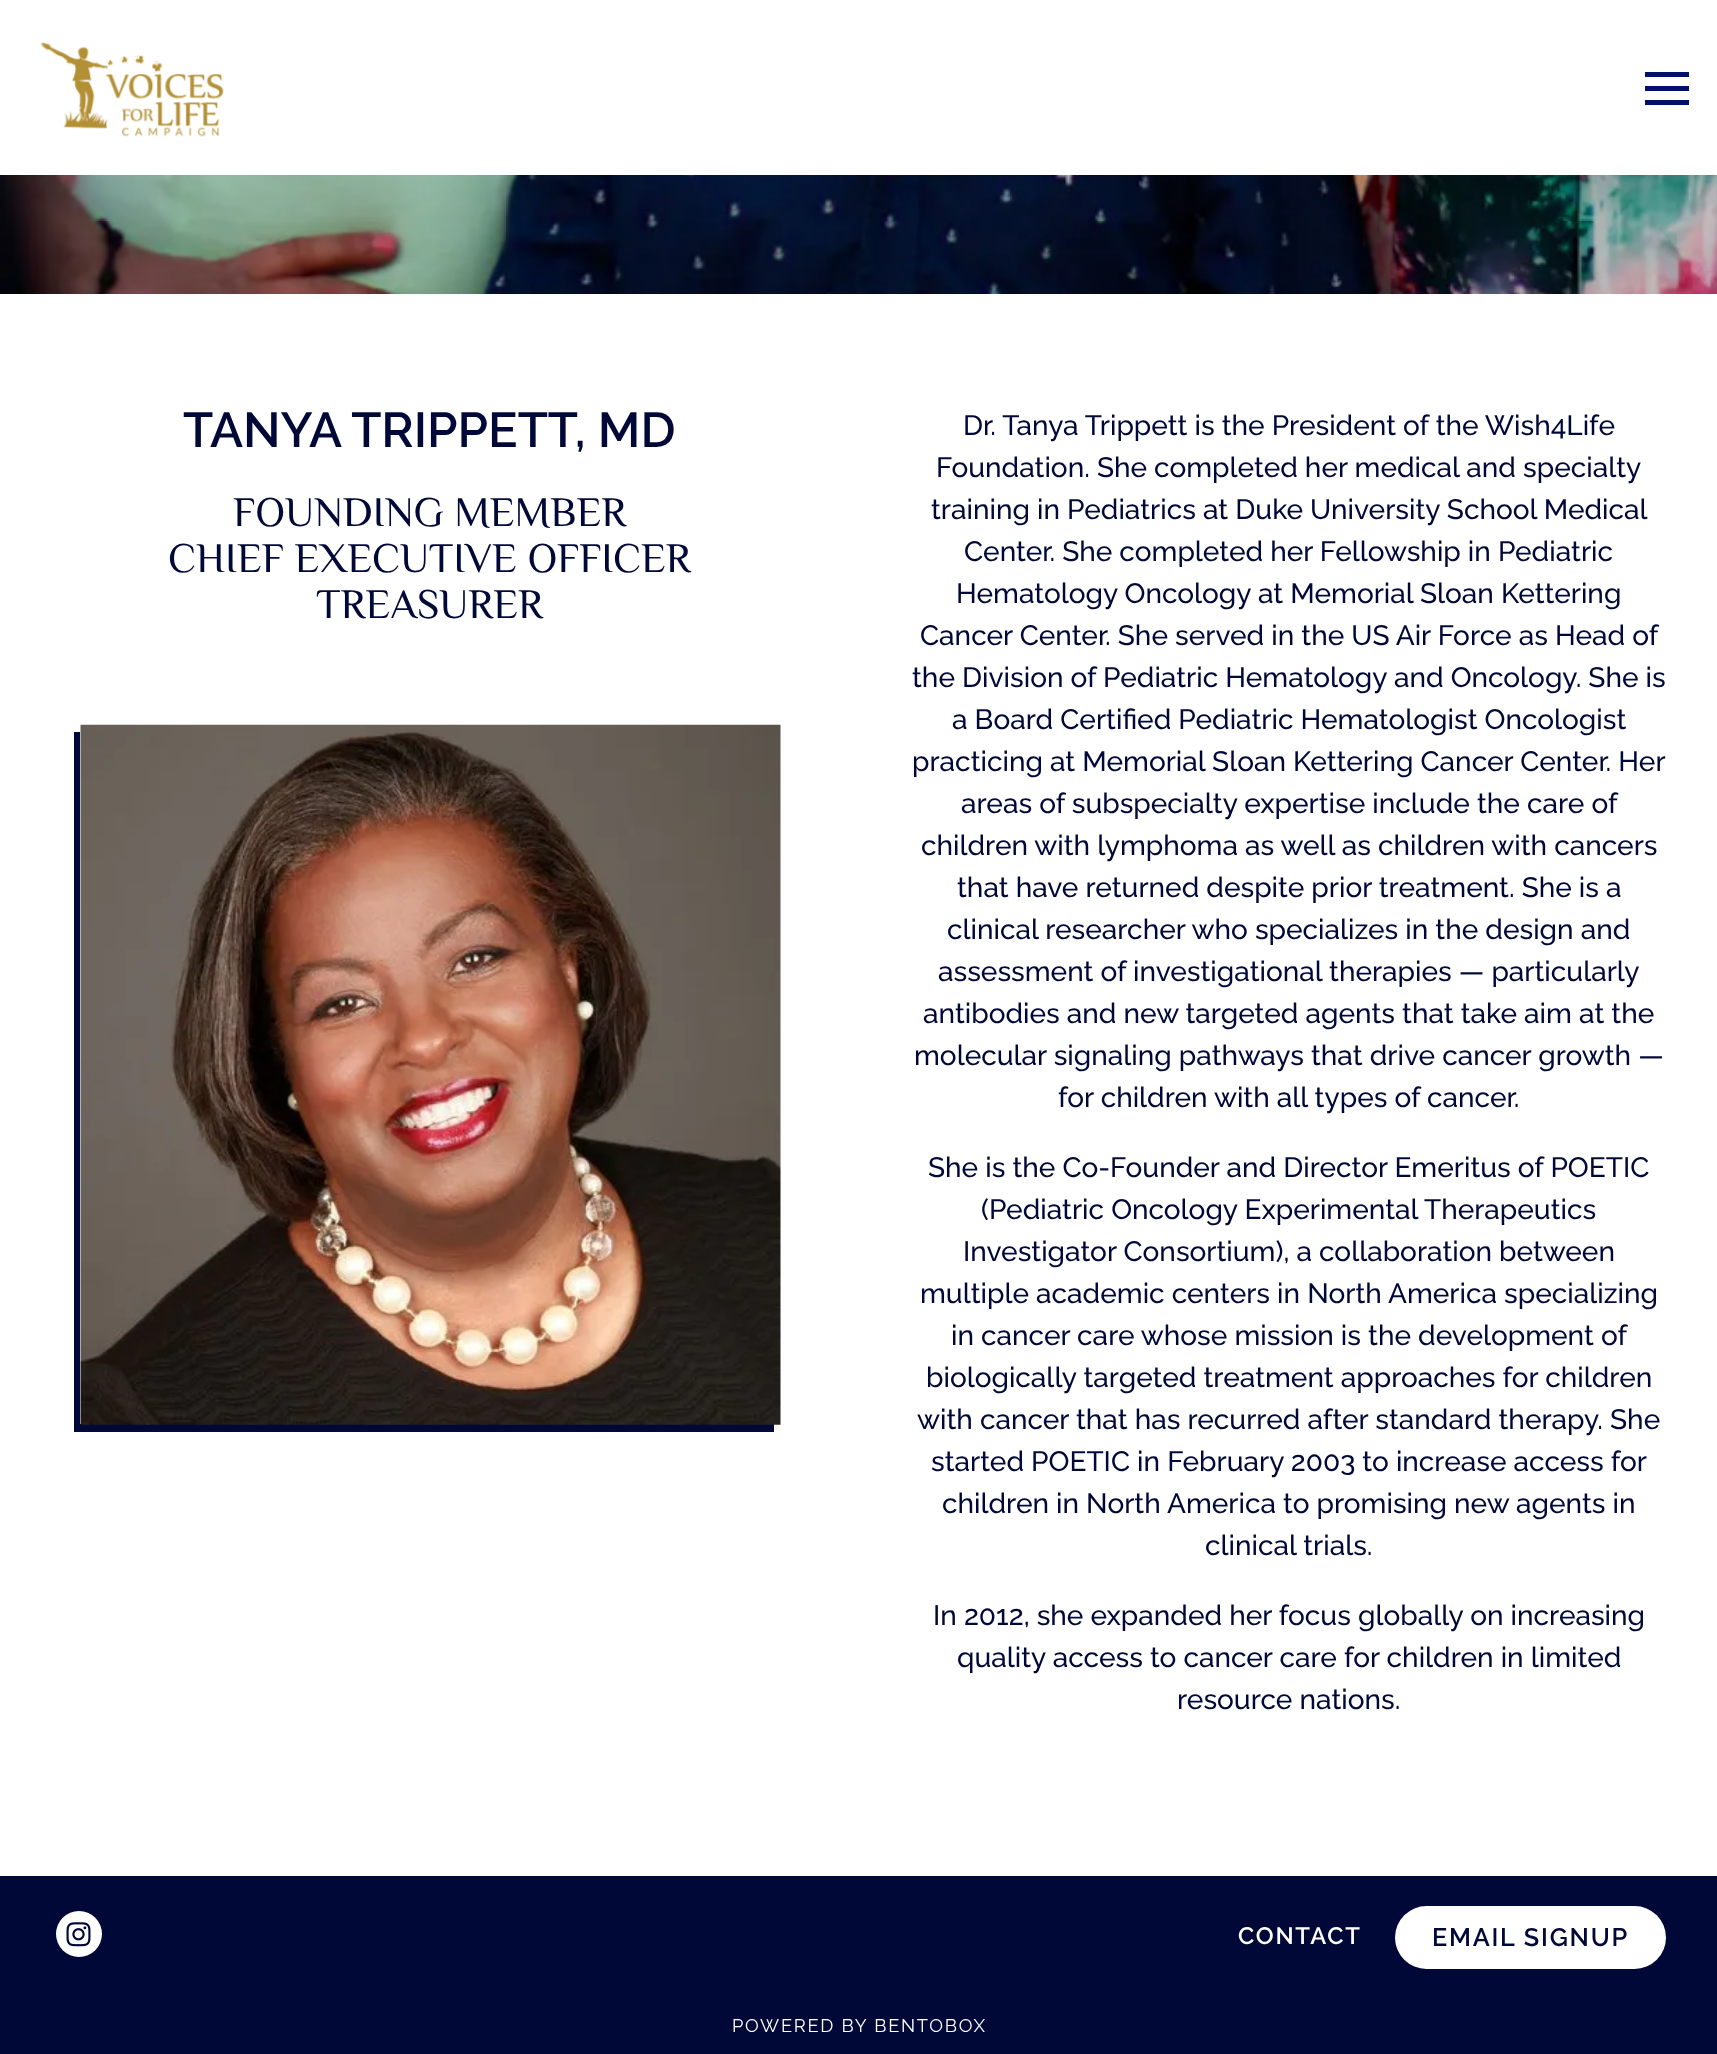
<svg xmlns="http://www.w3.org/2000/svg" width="1717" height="2054">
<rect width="100%" height="100%" fill="#fff"/>
<image x="41" y="42" width="183" height="95" href="media/1.png"/>
<rect x="1645" y="72" width="44" height="5" fill="#01116a"/>
<rect x="1645" y="86" width="44" height="5" fill="#01116a"/>
<rect x="1645" y="100" width="44" height="5" fill="#01116a"/>
<image x="0" y="175" width="1717" height="119" href="media/2.png"/>
<text x="183" y="447" style="font-family:Raleway;font-size:49px;font-weight:600;fill:#000838">TANYA TRIPPETT, MD</text>
<text x="233" y="526" style="font-family:ZCOOL XiaoWei;font-size:42px;fill:#000838">FOUNDING MEMBER</text>
<text x="168" y="572" style="font-family:ZCOOL XiaoWei;font-size:42px;fill:#000838">CHIEF EXECUTIVE OFFICER</text>
<text x="316" y="618" style="font-family:ZCOOL XiaoWei;font-size:42px;fill:#000838">TREASURER</text>
<path d="M74 732v700h700v-8h-694v-692z" fill="#000838"/>
<image x="80" y="724" width="701" height="701" href="media/3.png"/>
<text x="963" y="435" style="font-family:Raleway;font-size:28px;font-weight:500;fill:#000838">Dr. Tanya Trippett is the President of the Wish4Life</text>
<text x="936" y="477" style="font-family:Raleway;font-size:28px;font-weight:500;fill:#000838">Foundation. She completed her medical and specialty</text>
<text x="931" y="519" style="font-family:Raleway;font-size:28px;font-weight:500;fill:#000838">training in Pediatrics at Duke University School Medical</text>
<text x="964" y="561" style="font-family:Raleway;font-size:28px;font-weight:500;fill:#000838">Center. She completed her Fellowship in Pediatric</text>
<text x="956" y="603" style="font-family:Raleway;font-size:28px;font-weight:500;fill:#000838">Hematology Oncology at Memorial Sloan Kettering</text>
<text x="920" y="645" style="font-family:Raleway;font-size:28px;font-weight:500;fill:#000838">Cancer Center. She served in the US Air Force as Head of</text>
<text x="912" y="687" style="font-family:Raleway;font-size:28px;font-weight:500;fill:#000838">the Division of Pediatric Hematology and Oncology. She is</text>
<text x="952" y="729" style="font-family:Raleway;font-size:28px;font-weight:500;fill:#000838">a Board Certified Pediatric Hematologist Oncologist</text>
<text x="912" y="771" style="font-family:Raleway;font-size:28px;font-weight:500;fill:#000838">practicing at Memorial Sloan Kettering Cancer Center. Her</text>
<text x="961" y="813" style="font-family:Raleway;font-size:28px;font-weight:500;fill:#000838">areas of subspecialty expertise include the care of</text>
<text x="921" y="855" style="font-family:Raleway;font-size:28px;font-weight:500;fill:#000838">children with lymphoma as well as children with cancers</text>
<text x="957" y="897" style="font-family:Raleway;font-size:28px;font-weight:500;fill:#000838">that have returned despite prior treatment. She is a</text>
<text x="947" y="939" style="font-family:Raleway;font-size:28px;font-weight:500;fill:#000838">clinical researcher who specializes in the design and</text>
<text x="938" y="981" style="font-family:Raleway;font-size:28px;font-weight:500;fill:#000838">assessment of investigational therapies — particularly</text>
<text x="923" y="1023" style="font-family:Raleway;font-size:28px;font-weight:500;fill:#000838">antibodies and new targeted agents that take aim at the</text>
<text x="914" y="1065" style="font-family:Raleway;font-size:28px;font-weight:500;fill:#000838">molecular signaling pathways that drive cancer growth —</text>
<text x="1058" y="1107" style="font-family:Raleway;font-size:28px;font-weight:500;fill:#000838">for children with all types of cancer.</text>
<text x="928" y="1177" style="font-family:Raleway;font-size:28px;font-weight:500;fill:#000838">She is the Co-Founder and Director Emeritus of POETIC</text>
<text x="981" y="1219" style="font-family:Raleway;font-size:28px;font-weight:500;fill:#000838">(Pediatric Oncology Experimental Therapeutics</text>
<text x="963" y="1261" style="font-family:Raleway;font-size:28px;font-weight:500;fill:#000838">Investigator Consortium), a collaboration between</text>
<text x="920" y="1303" style="font-family:Raleway;font-size:28px;font-weight:500;fill:#000838">multiple academic centers in North America specializing</text>
<text x="951" y="1345" style="font-family:Raleway;font-size:28px;font-weight:500;fill:#000838">in cancer care whose mission is the development of</text>
<text x="926" y="1387" style="font-family:Raleway;font-size:28px;font-weight:500;fill:#000838">biologically targeted treatment approaches for children</text>
<text x="917" y="1429" style="font-family:Raleway;font-size:28px;font-weight:500;fill:#000838">with cancer that has recurred after standard therapy. She</text>
<text x="931" y="1471" style="font-family:Raleway;font-size:28px;font-weight:500;fill:#000838">started POETIC in February 2003 to increase access for</text>
<text x="942" y="1513" style="font-family:Raleway;font-size:28px;font-weight:500;fill:#000838">children in North America to promising new agents in</text>
<text x="1205" y="1555" style="font-family:Raleway;font-size:28px;font-weight:500;fill:#000838">clinical trials.</text>
<text x="933" y="1625" style="font-family:Raleway;font-size:28px;font-weight:500;fill:#000838">In 2012, she expanded her focus globally on increasing</text>
<text x="957" y="1667" style="font-family:Raleway;font-size:28px;font-weight:500;fill:#000838">quality access to cancer care for children in limited</text>
<text x="1177" y="1709" style="font-family:Raleway;font-size:28px;font-weight:500;fill:#000838">resource nations.</text>
<rect y="1876" width="1717" height="178" fill="#000838"/>
<circle cx="79" cy="1934" r="23" fill="#fff"/>
<image x="66" y="1922" width="25" height="25" href="media/4.png"/>
<text x="1238" y="1944" style="font-family:Raleway;font-size:23.75px;font-weight:600;letter-spacing:1.75px;fill:#fff">CONTACT</text>
<rect x="1395" y="1906" width="271" height="63" rx="31.5" fill="#fff"/>
<text x="1432" y="1946" style="font-family:Raleway;font-size:25.25px;font-weight:600;letter-spacing:1.75px;fill:#000838">EMAIL SIGNUP</text>
<text x="732" y="2032" style="font-family:Raleway;font-size:18.25px;letter-spacing:1.75px;fill:#fff">POWERED BY BENTOBOX</text>
</svg>
